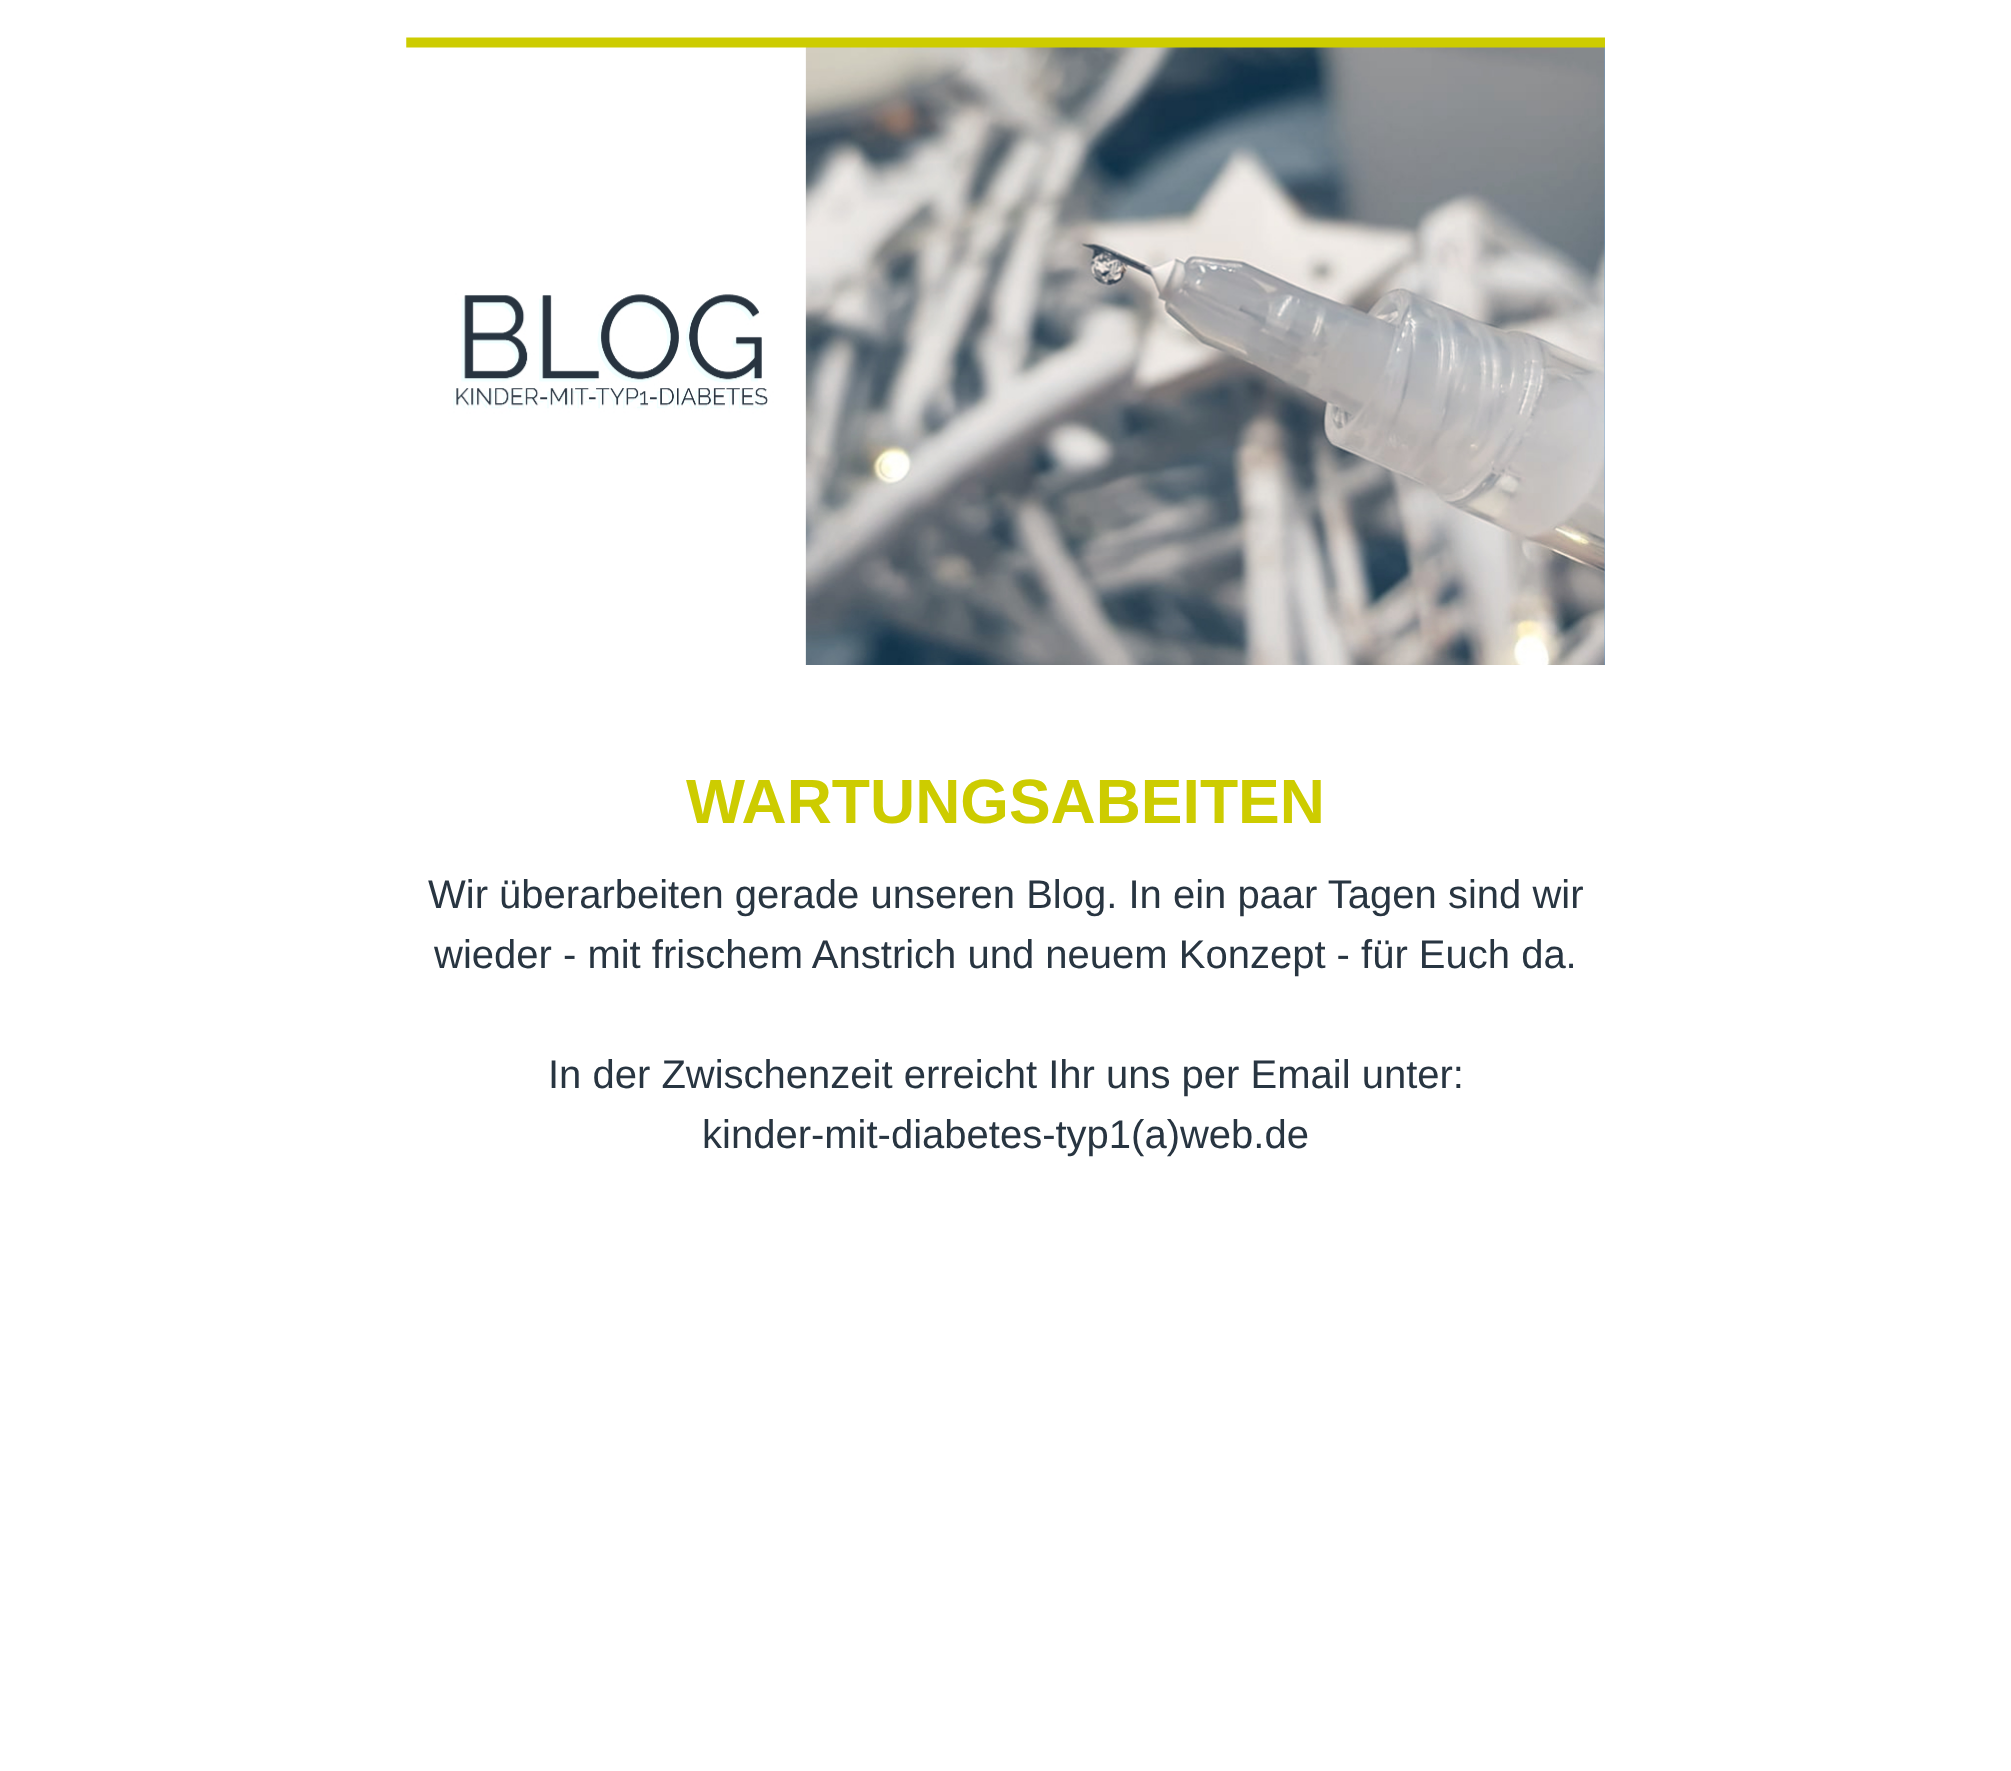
<svg xmlns="http://www.w3.org/2000/svg" width="2011" height="1771">
<rect width="100%" height="100%" fill="#fff"/>
<image x="406" y="37" width="1199" height="628" href="media/1.png"/>
<text x="686" y="823" style="font-family:Liberation Sans;font-size:62.5px;font-weight:bold;fill:#cdcc00">WARTUNGSABEITEN</text>
<text x="428" y="908" style="font-family:Liberation Sans;font-size:40px;fill:#283541">Wir überarbeiten gerade unseren Blog. In ein paar Tagen sind wir</text>
<text x="434" y="968" style="font-family:Liberation Sans;font-size:40px;fill:#283541">wieder - mit frischem Anstrich und neuem Konzept - für Euch da.</text>
<text x="548" y="1088" style="font-family:Liberation Sans;font-size:40px;fill:#283541">In der Zwischenzeit erreicht Ihr uns per Email unter:</text>
<text x="702" y="1148" style="font-family:Liberation Sans;font-size:40px;fill:#283541">kinder-mit-diabetes-typ1(a)web.de</text>
</svg>
